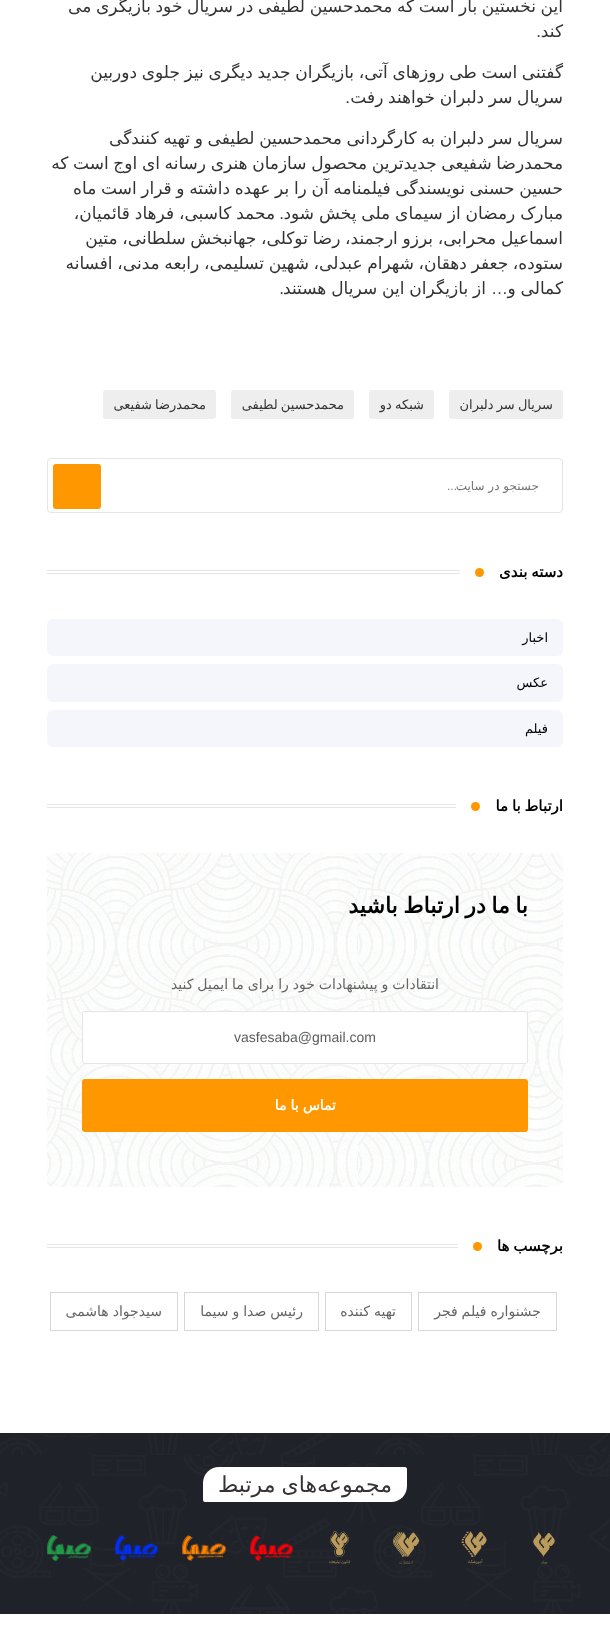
<svg xmlns="http://www.w3.org/2000/svg" width="610" height="1637">
<rect width="100%" height="100%" fill="#fff"/>
<text x="563" y="12" word-spacing="-0.75" style="font-family:DejaVu Sans;font-size:17px;direction:rtl;fill:#333">این نخستین بار است که محمدحسین لطیفی در سریال خود بازیگری می</text>
<text x="563" y="37" style="font-family:DejaVu Sans;font-size:17px;direction:rtl;fill:#333">کند</text>
<text x="541" y="37" style="font-family:Liberation Sans;font-size:17px;direction:rtl;fill:#333">.</text>
<text x="563" y="78" word-spacing="-0.75" style="font-family:DejaVu Sans;font-size:17px;direction:rtl;fill:#333">گفتنی است طی روزهای آتی، بازیگران جدید دیگری نیز جلوی دوربین</text>
<text x="563" y="103" word-spacing="-0.75" style="font-family:DejaVu Sans;font-size:17px;direction:rtl;fill:#333">سریال سر دلبران خواهند رفت</text>
<text x="350" y="103" style="font-family:Liberation Sans;font-size:17px;direction:rtl;fill:#333">.</text>
<text x="563" y="144" word-spacing="-0.75" style="font-family:DejaVu Sans;font-size:17px;direction:rtl;fill:#333">سریال سر دلبران به کارگردانی محمدحسین لطیفی و تهیه کنندگی</text>
<text x="563" y="169" word-spacing="-0.75" style="font-family:DejaVu Sans;font-size:17px;direction:rtl;fill:#333">محمدرضا شفیعی جدیدترین محصول سازمان هنری رسانه ای اوج است که</text>
<text x="563" y="194" word-spacing="-0.75" style="font-family:DejaVu Sans;font-size:17px;direction:rtl;fill:#333">حسین حسنی نویسندگی فیلمنامه آن را بر عهده داشته و قرار است ماه</text>
<text x="563" y="219" word-spacing="-0.5" style="font-family:DejaVu Sans;font-size:17px;direction:rtl;fill:#333">مبارک رمضان از سیمای ملی پخش شود</text>
<text x="284" y="219" style="font-family:Liberation Sans;font-size:17px;direction:rtl;fill:#333">.</text>
<text x="275" y="219" word-spacing="-0.5" style="font-family:DejaVu Sans;font-size:17px;direction:rtl;fill:#333">محمد کاسبی، فرهاد قائمیان،</text>
<text x="563" y="244" word-spacing="-0.75" style="font-family:DejaVu Sans;font-size:17px;direction:rtl;fill:#333">اسماعیل محرابی، برزو ارجمند، رضا توکلی، جهانبخش سلطانی، متین</text>
<text x="563" y="269" word-spacing="-0.75" style="font-family:DejaVu Sans;font-size:17px;direction:rtl;fill:#333">ستوده، جعفر دهقان، شهرام عبدلی، شهین تسلیمی، رابعه مدنی، افسانه</text>
<text x="563" y="294" word-spacing="-0.5" style="font-family:DejaVu Sans;font-size:17px;direction:rtl;fill:#333">کمالی و</text>
<text x="508" y="294" style="font-family:Liberation Sans;font-size:17px;direction:rtl;fill:#333">…</text>
<text x="486" y="294" word-spacing="-0.5" style="font-family:DejaVu Sans;font-size:17px;direction:rtl;fill:#333">از بازیگران این سریال هستند</text>
<text x="284" y="294" style="font-family:Liberation Sans;font-size:17px;direction:rtl;fill:#333">.</text>
<rect x="449" y="390" width="114" height="29" rx="3" fill="#eee"/>
<text x="553" y="409" word-spacing="-1" style="font-family:DejaVu Sans;font-size:13px;direction:rtl;fill:#333">سریال سر دلبران</text>
<rect x="369" y="390" width="65" height="29" rx="3" fill="#eee"/>
<text x="424" y="409" word-spacing="-1" style="font-family:DejaVu Sans;font-size:13px;direction:rtl;fill:#333">شبکه دو</text>
<rect x="231" y="390" width="123" height="29" rx="3" fill="#eee"/>
<text x="344" y="409" word-spacing="-1" style="font-family:DejaVu Sans;font-size:13px;direction:rtl;fill:#333">محمدحسین لطیفی</text>
<rect x="103" y="390" width="113" height="29" rx="3" fill="#eee"/>
<text x="206" y="409" word-spacing="-1" style="font-family:DejaVu Sans;font-size:13px;direction:rtl;fill:#333">محمدرضا شفیعی</text>
<rect x="47.5" y="458.5" width="515" height="54" rx="3.5" fill="none" stroke="#e5e5e5"/>
<text x="539" y="490" style="font-family:DejaVu Sans;font-size:12px;direction:rtl;fill:#757575">جستجو در سایت</text>
<text x="457" y="490" style="font-family:Liberation Sans;font-size:12px;direction:rtl;fill:#757575">...</text>
<rect x="53" y="464" width="48" height="45" rx="3" fill="#ff9800"/>
<text x="563" y="577" word-spacing="-1" style="font-family:DejaVu Sans;font-size:15px;font-weight:bold;direction:rtl;fill:#000">دسته بندی</text>
<circle cx="479.5" cy="572.5" r="4.5" fill="#ff9800"/>
<rect x="47" y="570" width="413" height="1" fill="#e5e5e5"/>
<rect x="47" y="573" width="413" height="1" fill="#e5e5e5"/>
<rect x="47" y="619" width="516" height="37" rx="6" fill="#f5f6fb"/>
<text x="548" y="642" style="font-family:DejaVu Sans;font-size:13px;direction:rtl;fill:#000">اخبار</text>
<rect x="47" y="664" width="516" height="38" rx="6" fill="#f5f6fb"/>
<text x="548" y="687" style="font-family:DejaVu Sans;font-size:13px;direction:rtl;fill:#000">عکس</text>
<rect x="47" y="710" width="516" height="37" rx="6" fill="#f5f6fb"/>
<text x="548" y="733" style="font-family:DejaVu Sans;font-size:13px;direction:rtl;fill:#000">فیلم</text>
<text x="563" y="811" word-spacing="-1" style="font-family:DejaVu Sans;font-size:15px;font-weight:bold;direction:rtl;fill:#000">ارتباط با ما</text>
<circle cx="475.5" cy="806.5" r="4.5" fill="#ff9800"/>
<rect x="47" y="804" width="409" height="1" fill="#e5e5e5"/>
<rect x="47" y="807" width="409" height="1" fill="#e5e5e5"/>
<image x="47" y="853" width="516" height="334" href="media/1.png"/>
<text x="528" y="913" word-spacing="-1.5" style="font-family:DejaVu Sans;font-size:22px;font-weight:bold;direction:rtl;fill:#000">با ما در ارتباط باشید</text>
<text x="439" y="989" word-spacing="-0.5" style="font-family:DejaVu Sans;font-size:14px;direction:rtl;fill:#646464">انتقادات و پیشنهادات خود را برای ما ایمیل کنید</text>
<rect x="82.5" y="1011.5" width="445" height="52" rx="2.5" fill="#fff" stroke="#e5e5e5"/>
<text x="234" y="1042" style="font-family:Liberation Sans;font-size:14px;fill:#595c5f">vasfesaba@gmail.com</text>
<rect x="82" y="1079" width="446" height="53" rx="3" fill="#ff9800"/>
<text x="336" y="1110" word-spacing="-0.5" style="font-family:DejaVu Sans;font-size:14px;font-weight:bold;direction:rtl;fill:#fff">تماس با ما</text>
<text x="563" y="1251" word-spacing="-1" style="font-family:DejaVu Sans;font-size:15px;font-weight:bold;direction:rtl;fill:#000">برچسب ها</text>
<circle cx="477.5" cy="1246.5" r="4.5" fill="#ff9800"/>
<rect x="47" y="1244" width="411" height="1" fill="#e5e5e5"/>
<rect x="47" y="1247" width="411" height="1" fill="#e5e5e5"/>
<rect x="418.5" y="1292.5" width="138" height="38" fill="none" stroke="#d7d7d7"/>
<text x="541" y="1316" word-spacing="-0.5" style="font-family:DejaVu Sans;font-size:14px;direction:rtl;fill:#646464">جشنواره فیلم فجر</text>
<rect x="325.5" y="1292.5" width="86" height="38" fill="none" stroke="#d7d7d7"/>
<text x="396" y="1316" word-spacing="-0.5" style="font-family:DejaVu Sans;font-size:14px;direction:rtl;fill:#646464">تهیه کننده</text>
<rect x="184.5" y="1292.5" width="134" height="38" fill="none" stroke="#d7d7d7"/>
<text x="303" y="1316" word-spacing="-0.5" style="font-family:DejaVu Sans;font-size:14px;direction:rtl;fill:#646464">رئیس صدا و سیما</text>
<rect x="50.5" y="1292.5" width="127" height="38" fill="none" stroke="#d7d7d7"/>
<text x="162" y="1316" word-spacing="-0.5" style="font-family:DejaVu Sans;font-size:14px;direction:rtl;fill:#646464">سیدجواد هاشمی</text>
<image x="0" y="1433" width="610" height="181" href="media/2.png"/>
<path d="M219 1467h186c1 0 2 1 2 2v17c0 9-7 16-16 16h-186c-1 0-2-1-2-2v-17c0-9 7-16 16-16z" fill="#fff"/>
<text x="392" y="1492" style="font-family:DejaVu Sans;font-size:22px;direction:rtl;fill:#333">مجموعه</text>
<text x="317" y="1492" word-spacing="-1" style="font-family:DejaVu Sans;font-size:22px;direction:rtl;fill:#333">های مرتبط</text>
<image x="533" y="1532" width="22" height="32" href="media/3.png"/>
<image x="461" y="1531" width="26" height="33" href="media/4.png"/>
<image x="392" y="1532" width="28" height="32" href="media/5.png"/>
<image x="328" y="1531" width="23" height="33" href="media/6.png"/>
<image x="250" y="1535" width="43" height="26" href="media/7.png"/>
<image x="182" y="1535" width="44" height="26" href="media/8.png"/>
<image x="115" y="1535" width="43" height="26" href="media/9.png"/>
<image x="47" y="1535" width="44" height="26" href="media/10.png"/>
</svg>
